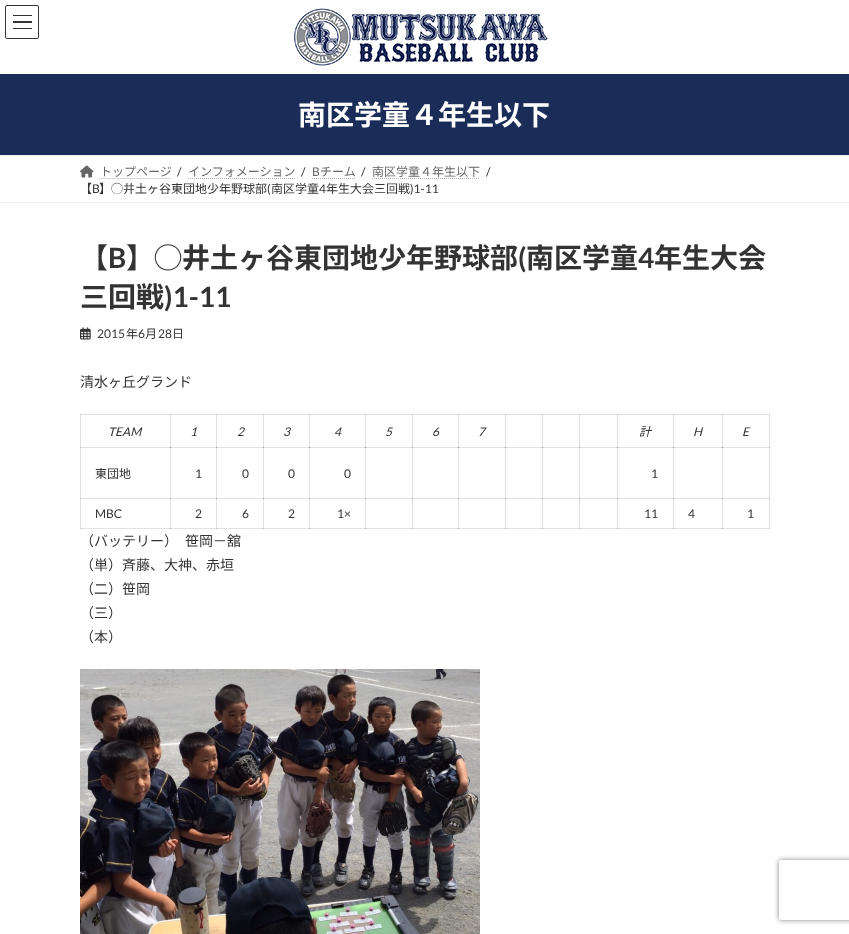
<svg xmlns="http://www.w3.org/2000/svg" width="849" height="934">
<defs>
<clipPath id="clip1"><path d="M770 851h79v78h-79zm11 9h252c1 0 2 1 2 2v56c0 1-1 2-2 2h-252c-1 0-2-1-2-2v-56c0-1 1-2 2-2z" clip-rule="evenodd"/></clipPath>
</defs>
<rect width="100%" height="100%" fill="#fff"/>
<rect x="170" y="414" width="1" height="34" fill="#e2e2e2"/>
<rect x="216" y="414" width="1" height="34" fill="#e2e2e2"/>
<rect x="263" y="414" width="1" height="34" fill="#e2e2e2"/>
<rect x="309" y="414" width="1" height="34" fill="#e2e2e2"/>
<rect x="365" y="414" width="1" height="34" fill="#e2e2e2"/>
<rect x="412" y="414" width="1" height="34" fill="#e2e2e2"/>
<rect x="458" y="414" width="1" height="34" fill="#e2e2e2"/>
<rect x="505" y="414" width="1" height="34" fill="#e2e2e2"/>
<rect x="542" y="414" width="1" height="34" fill="#e2e2e2"/>
<rect x="579" y="414" width="1" height="34" fill="#e2e2e2"/>
<rect x="617" y="414" width="1" height="34" fill="#e2e2e2"/>
<rect x="673" y="414" width="1" height="34" fill="#e2e2e2"/>
<rect x="722" y="414" width="1" height="34" fill="#e2e2e2"/>
<rect x="80" y="447" width="91" height="1" fill="#e2e2e2"/>
<rect x="170" y="447" width="1" height="52" fill="#e2e2e2"/>
<rect x="170" y="447" width="47" height="1" fill="#e2e2e2"/>
<rect x="170" y="447" width="1" height="1" fill="#9b9b9b"/>
<rect x="216" y="447" width="1" height="52" fill="#e2e2e2"/>
<rect x="216" y="447" width="48" height="1" fill="#e2e2e2"/>
<rect x="216" y="447" width="1" height="1" fill="#9b9b9b"/>
<rect x="263" y="447" width="1" height="52" fill="#e2e2e2"/>
<rect x="263" y="447" width="47" height="1" fill="#e2e2e2"/>
<rect x="263" y="447" width="1" height="1" fill="#9b9b9b"/>
<rect x="309" y="447" width="1" height="52" fill="#e2e2e2"/>
<rect x="309" y="447" width="57" height="1" fill="#e2e2e2"/>
<rect x="309" y="447" width="1" height="1" fill="#9b9b9b"/>
<rect x="365" y="447" width="1" height="52" fill="#e2e2e2"/>
<rect x="365" y="447" width="48" height="1" fill="#e2e2e2"/>
<rect x="365" y="447" width="1" height="1" fill="#9b9b9b"/>
<rect x="412" y="447" width="1" height="52" fill="#e2e2e2"/>
<rect x="412" y="447" width="47" height="1" fill="#e2e2e2"/>
<rect x="412" y="447" width="1" height="1" fill="#9b9b9b"/>
<rect x="458" y="447" width="1" height="52" fill="#e2e2e2"/>
<rect x="458" y="447" width="48" height="1" fill="#e2e2e2"/>
<rect x="458" y="447" width="1" height="1" fill="#9b9b9b"/>
<rect x="505" y="447" width="1" height="52" fill="#e2e2e2"/>
<rect x="505" y="447" width="38" height="1" fill="#e2e2e2"/>
<rect x="505" y="447" width="1" height="1" fill="#9b9b9b"/>
<rect x="542" y="447" width="1" height="52" fill="#e2e2e2"/>
<rect x="542" y="447" width="38" height="1" fill="#e2e2e2"/>
<rect x="542" y="447" width="1" height="1" fill="#9b9b9b"/>
<rect x="579" y="447" width="1" height="52" fill="#e2e2e2"/>
<rect x="579" y="447" width="39" height="1" fill="#e2e2e2"/>
<rect x="579" y="447" width="1" height="1" fill="#9b9b9b"/>
<rect x="617" y="447" width="1" height="52" fill="#e2e2e2"/>
<rect x="617" y="447" width="57" height="1" fill="#e2e2e2"/>
<rect x="617" y="447" width="1" height="1" fill="#9b9b9b"/>
<rect x="673" y="447" width="1" height="52" fill="#e2e2e2"/>
<rect x="673" y="447" width="50" height="1" fill="#e2e2e2"/>
<rect x="673" y="447" width="1" height="1" fill="#9b9b9b"/>
<rect x="722" y="447" width="1" height="52" fill="#e2e2e2"/>
<rect x="722" y="447" width="48" height="1" fill="#e2e2e2"/>
<rect x="722" y="447" width="1" height="1" fill="#9b9b9b"/>
<rect x="80" y="498" width="91" height="1" fill="#e2e2e2"/>
<rect x="170" y="498" width="1" height="31" fill="#e2e2e2"/>
<rect x="170" y="498" width="47" height="1" fill="#e2e2e2"/>
<rect x="170" y="498" width="1" height="1" fill="#9b9b9b"/>
<rect x="216" y="498" width="1" height="31" fill="#e2e2e2"/>
<rect x="216" y="498" width="48" height="1" fill="#e2e2e2"/>
<rect x="216" y="498" width="1" height="1" fill="#9b9b9b"/>
<rect x="263" y="498" width="1" height="31" fill="#e2e2e2"/>
<rect x="263" y="498" width="47" height="1" fill="#e2e2e2"/>
<rect x="263" y="498" width="1" height="1" fill="#9b9b9b"/>
<rect x="309" y="498" width="1" height="31" fill="#e2e2e2"/>
<rect x="309" y="498" width="57" height="1" fill="#e2e2e2"/>
<rect x="309" y="498" width="1" height="1" fill="#9b9b9b"/>
<rect x="365" y="498" width="1" height="31" fill="#e2e2e2"/>
<rect x="365" y="498" width="48" height="1" fill="#e2e2e2"/>
<rect x="365" y="498" width="1" height="1" fill="#9b9b9b"/>
<rect x="412" y="498" width="1" height="31" fill="#e2e2e2"/>
<rect x="412" y="498" width="47" height="1" fill="#e2e2e2"/>
<rect x="412" y="498" width="1" height="1" fill="#9b9b9b"/>
<rect x="458" y="498" width="1" height="31" fill="#e2e2e2"/>
<rect x="458" y="498" width="48" height="1" fill="#e2e2e2"/>
<rect x="458" y="498" width="1" height="1" fill="#9b9b9b"/>
<rect x="505" y="498" width="1" height="31" fill="#e2e2e2"/>
<rect x="505" y="498" width="38" height="1" fill="#e2e2e2"/>
<rect x="505" y="498" width="1" height="1" fill="#9b9b9b"/>
<rect x="542" y="498" width="1" height="31" fill="#e2e2e2"/>
<rect x="542" y="498" width="38" height="1" fill="#e2e2e2"/>
<rect x="542" y="498" width="1" height="1" fill="#9b9b9b"/>
<rect x="579" y="498" width="1" height="31" fill="#e2e2e2"/>
<rect x="579" y="498" width="39" height="1" fill="#e2e2e2"/>
<rect x="579" y="498" width="1" height="1" fill="#9b9b9b"/>
<rect x="617" y="498" width="1" height="31" fill="#e2e2e2"/>
<rect x="617" y="498" width="57" height="1" fill="#e2e2e2"/>
<rect x="617" y="498" width="1" height="1" fill="#9b9b9b"/>
<rect x="673" y="498" width="1" height="31" fill="#e2e2e2"/>
<rect x="673" y="498" width="50" height="1" fill="#e2e2e2"/>
<rect x="673" y="498" width="1" height="1" fill="#9b9b9b"/>
<rect x="722" y="498" width="1" height="31" fill="#e2e2e2"/>
<rect x="722" y="498" width="48" height="1" fill="#e2e2e2"/>
<rect x="722" y="498" width="1" height="1" fill="#9b9b9b"/>
<rect x="80" y="414" width="1" height="115" fill="#e2e2e2"/>
<rect x="80" y="447" width="1" height="1" fill="#bbb"/>
<rect x="80" y="498" width="1" height="1" fill="#bbb"/>
<rect x="80" y="528" width="690" height="1" fill="#e2e2e2"/>
<rect x="170" y="528" width="1" height="1" fill="#bbb"/>
<rect x="216" y="528" width="1" height="1" fill="#bbb"/>
<rect x="263" y="528" width="1" height="1" fill="#bbb"/>
<rect x="309" y="528" width="1" height="1" fill="#bbb"/>
<rect x="365" y="528" width="1" height="1" fill="#bbb"/>
<rect x="412" y="528" width="1" height="1" fill="#bbb"/>
<rect x="458" y="528" width="1" height="1" fill="#bbb"/>
<rect x="505" y="528" width="1" height="1" fill="#bbb"/>
<rect x="542" y="528" width="1" height="1" fill="#bbb"/>
<rect x="579" y="528" width="1" height="1" fill="#bbb"/>
<rect x="617" y="528" width="1" height="1" fill="#bbb"/>
<rect x="673" y="528" width="1" height="1" fill="#bbb"/>
<rect x="722" y="528" width="1" height="1" fill="#bbb"/>
<rect x="80" y="528" width="1" height="1" fill="#c7c7c7"/>
<rect x="769" y="414" width="1" height="115" fill="#e2e2e2"/>
<rect x="769" y="447" width="1" height="1" fill="#bbb"/>
<rect x="769" y="498" width="1" height="1" fill="#bbb"/>
<rect x="769" y="528" width="1" height="1" fill="#c7c7c7"/>
<rect x="13" y="15" width="19" height="1" fill="#333"/>
<rect x="13" y="21" width="19" height="2" fill="#333"/>
<rect x="13" y="28" width="19" height="1" fill="#333"/>
<rect x="5.5" y="5.5" width="33" height="33" rx="1.5" fill="none" stroke="#333"/>
<image x="294" y="8" width="254" height="58" href="media/1.png"/>
<rect y="74" width="849" height="81" fill="#1a2c58"/>
<text x="298" y="125" style="font-family:Noto Sans JP;font-size:28px;font-weight:bold;fill:#fff">南区学童４年生以下</text>
<rect y="155" width="849" height="1" fill="#f0f0f0"/>
<rect y="202" width="849" height="1" fill="#f0f0f0"/>
<image x="80" y="165" width="14" height="13" href="media/2.png"/>
<text x="100" y="176" style="font-family:Noto Sans JP;font-size:12px;fill:#666">トップページ</text>
<path d="M99.5 178.5h72" fill="none" stroke="#b3b3b3" stroke-dasharray="1 1"/>
<text x="177" y="176" style="font-family:Lato;font-size:12px;fill:#333">/</text>
<text x="188" y="176" style="font-family:Noto Sans JP;font-size:12px;fill:#666">インフォメーション</text>
<path d="M188 178.5h107.5" fill="none" stroke="#b3b3b3" stroke-dasharray="1 1"/>
<text x="301" y="176" style="font-family:Lato;font-size:12px;fill:#333">/</text>
<text x="312" y="176" style="font-family:Lato;font-size:12px;fill:#666">B</text>
<path d="M312 178.5h43.5" fill="none" stroke="#b3b3b3" stroke-dasharray="1 1"/>
<text x="320" y="176" style="font-family:Noto Sans JP;font-size:12px;fill:#666">チーム</text>
<text x="361" y="176" style="font-family:Lato;font-size:12px;fill:#333">/</text>
<text x="372" y="176" style="font-family:Noto Sans JP;font-size:12px;fill:#666">南区学童４年生以下</text>
<path d="M372 178.5h108" fill="none" stroke="#b3b3b3" stroke-dasharray="1 1"/>
<text x="486" y="176" style="font-family:Lato;font-size:12px;fill:#333">/</text>
<text x="80" y="193" style="font-family:Noto Sans JP;font-size:12px;fill:#333">【</text>
<text x="92" y="193" style="font-family:Lato;font-size:12px;fill:#333">B</text>
<text x="99" y="193" style="font-family:Noto Sans JP;font-size:12px;fill:#333">】◯井土ヶ谷東団地少年野球部</text>
<text x="267" y="193" style="font-family:Lato;font-size:12px;fill:#333">(</text>
<text x="271" y="193" style="font-family:Noto Sans JP;font-size:12px;fill:#333">南区学童</text>
<text x="319" y="193" style="font-family:Lato;font-size:12px;fill:#333">4</text>
<text x="326" y="193" style="font-family:Noto Sans JP;font-size:12px;fill:#333">年生大会三回戦</text>
<text x="410" y="193" style="font-family:Lato;font-size:12px;fill:#333">)1-11</text>
<text x="80" y="268" style="font-family:Noto Sans JP;font-size:28px;font-weight:bold;fill:#333">【</text>
<text x="108" y="268" style="font-family:Lato;font-size:28px;font-weight:bold;fill:#333">B</text>
<text x="126" y="268" style="font-family:Noto Sans JP;font-size:28px;font-weight:bold;fill:#333">】◯井土ヶ谷東団地少年野球部</text>
<text x="518" y="268" style="font-family:Lato;font-size:28px;font-weight:bold;fill:#333">(</text>
<text x="526" y="268" style="font-family:Noto Sans JP;font-size:28px;font-weight:bold;fill:#333">南区学童</text>
<text x="638" y="268" style="font-family:Lato;font-size:28px;font-weight:bold;fill:#333">4</text>
<text x="654" y="268" style="font-family:Noto Sans JP;font-size:28px;font-weight:bold;fill:#333">年生大会</text>
<text x="80" y="307" style="font-family:Noto Sans JP;font-size:28px;font-weight:bold;fill:#333">三回戦</text>
<text x="164" y="307" style="font-family:Lato;font-size:28px;font-weight:bold;fill:#333">)1-11</text>
<image x="80" y="327" width="11" height="13" href="media/3.png"/>
<text x="97" y="338" style="font-family:Lato;font-size:12px;fill:#333">2015</text>
<text x="126" y="338" style="font-family:Noto Sans JP;font-size:12px;fill:#333">年</text>
<text x="138" y="338" style="font-family:Lato;font-size:12px;fill:#333">6</text>
<text x="145" y="338" style="font-family:Noto Sans JP;font-size:12px;fill:#333">月</text>
<text x="158" y="338" style="font-family:Lato;font-size:12px;fill:#333">28</text>
<text x="172" y="338" style="font-family:Noto Sans JP;font-size:12px;fill:#333">日</text>
<text x="80" y="387" style="font-family:Noto Sans JP;font-size:14px;fill:#333">清水ヶ丘グランド</text>
<rect x="80" y="414" width="690" height="1" fill="#e2e2e2"/>
<rect x="170" y="414" width="1" height="1" fill="#bbb"/>
<rect x="216" y="414" width="1" height="1" fill="#bbb"/>
<rect x="263" y="414" width="1" height="1" fill="#bbb"/>
<rect x="309" y="414" width="1" height="1" fill="#bbb"/>
<rect x="365" y="414" width="1" height="1" fill="#bbb"/>
<rect x="412" y="414" width="1" height="1" fill="#bbb"/>
<rect x="458" y="414" width="1" height="1" fill="#bbb"/>
<rect x="505" y="414" width="1" height="1" fill="#bbb"/>
<rect x="542" y="414" width="1" height="1" fill="#bbb"/>
<rect x="579" y="414" width="1" height="1" fill="#bbb"/>
<rect x="617" y="414" width="1" height="1" fill="#bbb"/>
<rect x="673" y="414" width="1" height="1" fill="#bbb"/>
<rect x="722" y="414" width="1" height="1" fill="#bbb"/>
<rect x="80" y="414" width="1" height="1" fill="#c7c7c7"/>
<rect x="769" y="414" width="1" height="1" fill="#c7c7c7"/>
<text x="108" y="436" style="font-family:Lato;font-size:12px;font-style:italic;fill:#333">TEAM</text>
<text x="190" y="436" style="font-family:Lato;font-size:12px;font-style:italic;fill:#333">1</text>
<text x="237" y="436" style="font-family:Lato;font-size:12px;font-style:italic;fill:#333">2</text>
<text x="283" y="436" style="font-family:Lato;font-size:12px;font-style:italic;fill:#333">3</text>
<text x="334" y="436" style="font-family:Lato;font-size:12px;font-style:italic;fill:#333">4</text>
<text x="385" y="436" style="font-family:Lato;font-size:12px;font-style:italic;fill:#333">5</text>
<text x="432" y="436" style="font-family:Lato;font-size:12px;font-style:italic;fill:#333">6</text>
<text x="478" y="436" style="font-family:Lato;font-size:12px;font-style:italic;fill:#333">7</text>
<text x="639" y="436" style="font-family:Noto Sans JP;font-size:12px;font-style:italic;fill:#333">計</text>
<text x="693" y="436" style="font-family:Lato;font-size:12px;font-style:italic;fill:#333">H</text>
<text x="742" y="436" style="font-family:Lato;font-size:12px;font-style:italic;fill:#333">E</text>
<text x="95" y="478" style="font-family:Noto Sans JP;font-size:12px;fill:#333">東団地</text>
<text x="195" y="478" style="font-family:Lato;font-size:12px;fill:#333">1</text>
<text x="242" y="478" style="font-family:Lato;font-size:12px;fill:#333">0</text>
<text x="288" y="478" style="font-family:Lato;font-size:12px;fill:#333">0</text>
<text x="344" y="478" style="font-family:Lato;font-size:12px;fill:#333">0</text>
<text x="651" y="478" style="font-family:Lato;font-size:12px;fill:#333">1</text>
<text x="95" y="518" style="font-family:Lato;font-size:12px;fill:#333">MBC</text>
<text x="195" y="518" style="font-family:Lato;font-size:12px;fill:#333">2</text>
<text x="242" y="518" style="font-family:Lato;font-size:12px;fill:#333">6</text>
<text x="288" y="518" style="font-family:Lato;font-size:12px;fill:#333">2</text>
<text x="337" y="518" style="font-family:Lato;font-size:12px;fill:#333">1×</text>
<text x="644" y="518" style="font-family:Lato;font-size:12px;fill:#333">11</text>
<text x="688" y="518" style="font-family:Lato;font-size:12px;fill:#333">4</text>
<text x="747" y="518" style="font-family:Lato;font-size:12px;fill:#333">1</text>
<text x="80" y="546" style="font-family:Noto Sans JP;font-size:14px;fill:#333">（バッテリー）　笹岡－舘</text>
<text x="80" y="570" style="font-family:Noto Sans JP;font-size:14px;fill:#333">（単）斉藤、大神、赤垣</text>
<text x="80" y="594" style="font-family:Noto Sans JP;font-size:14px;fill:#333">（二）笹岡</text>
<text x="80" y="618" style="font-family:Noto Sans JP;font-size:14px;fill:#333">（三）</text>
<text x="80" y="642" style="font-family:Noto Sans JP;font-size:14px;fill:#333">（本）</text>
<image x="80" y="669" width="400" height="265" href="media/4.png"/>
<g clip-path="url(#clip1)">
<rect x="779" y="860" width="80" height="60" rx="2" fill="#808080" filter="blur(2.5px)"/>
</g>
</svg>
